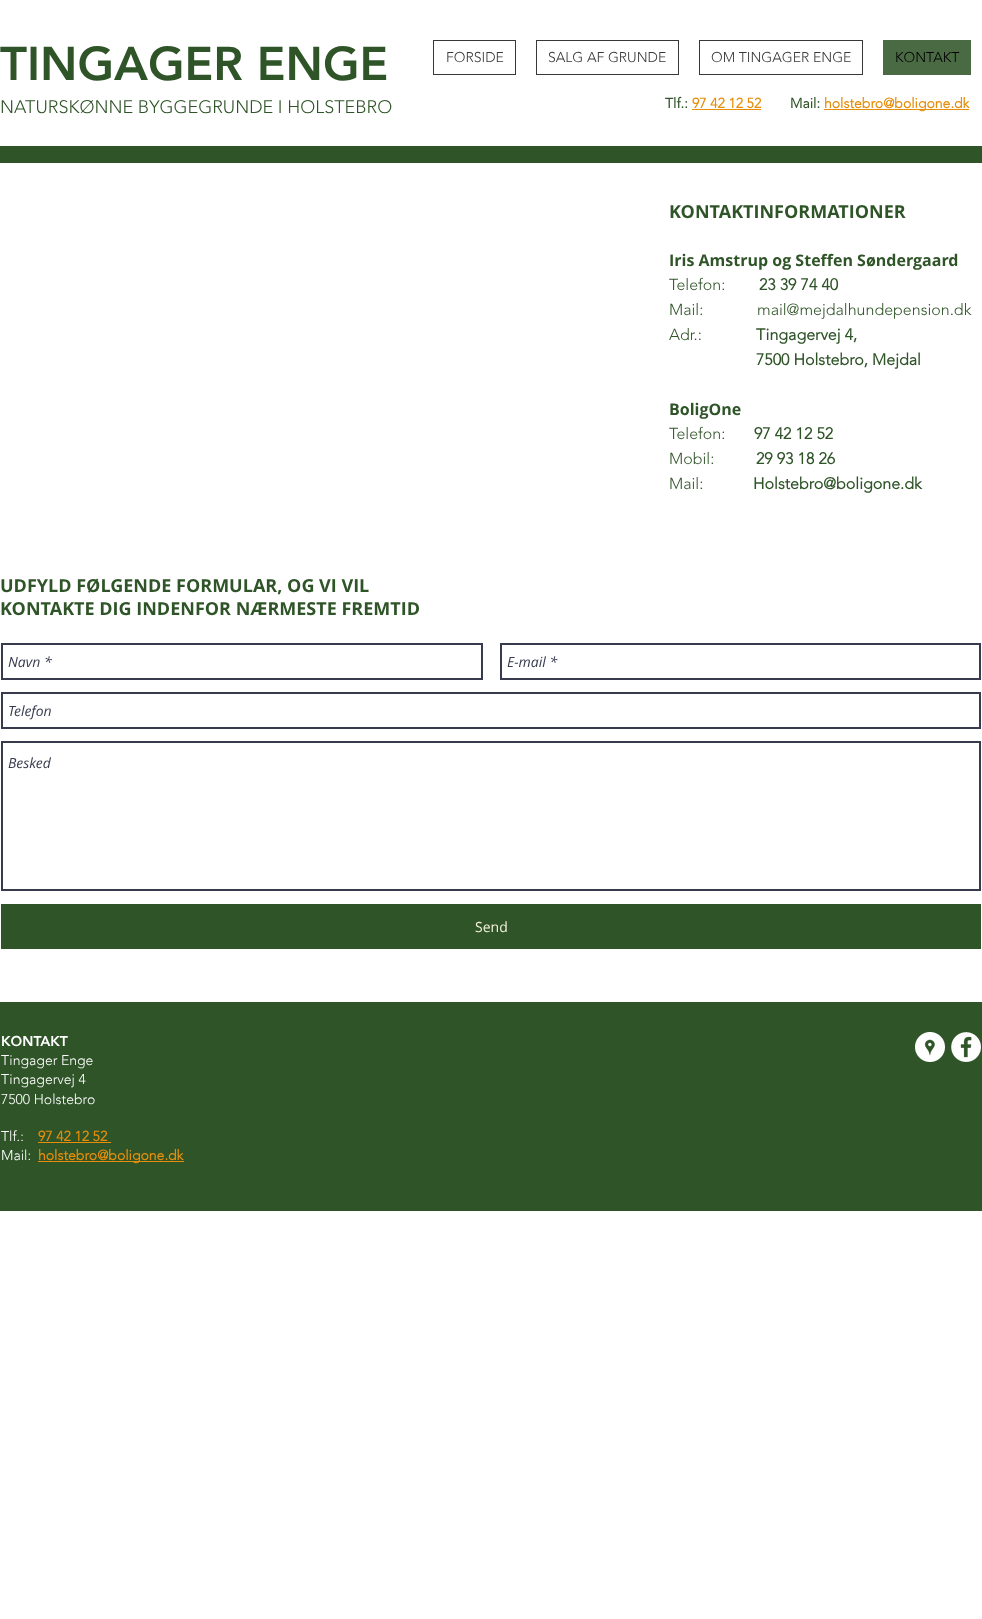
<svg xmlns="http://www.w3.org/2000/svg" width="982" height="1619">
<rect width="100%" height="100%" fill="#fff"/>
<text x="0" y="80" style="font-family:'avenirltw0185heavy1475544';font-size:47px;font-weight:900;fill:#2f5428">TINGAGER ENGE</text>
<text x="0" y="113" style="font-family:'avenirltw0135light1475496';font-size:18px;font-weight:300;fill:#2f5428">NATURSKØNNE BYGGEGRUNDE I HOLSTEBRO</text>
<rect x="433.5" y="40.5" width="82" height="34" fill="none" stroke="#383838"/>
<text x="446" y="62" style="font-family:'avenirltw0135light1475496';font-size:14px;font-weight:300;fill:#383838">FORSIDE</text>
<rect x="536.5" y="40.5" width="142" height="34" fill="none" stroke="#383838"/>
<text x="548" y="62" style="font-family:'avenirltw0135light1475496';font-size:14px;font-weight:300;fill:#383838">SALG AF GRUNDE</text>
<rect x="699.5" y="40.5" width="163" height="34" fill="none" stroke="#383838"/>
<text x="711" y="62" style="font-family:'avenirltw0135light1475496';font-size:14px;font-weight:300;fill:#383838">OM TINGAGER ENGE</text>
<rect x="883" y="40" width="88" height="35" fill="#4a6a44"/>
<text x="895" y="62" style="font-family:'avenirltw0135light1475496';font-size:14px;font-weight:300;fill:#000">KONTAKT</text>
<text x="665" y="108" style="font-family:'avenirltw0135light1475496';font-size:14px;font-weight:bold;fill:#2f5428">Tlf.:</text>
<text x="692" y="108" style="font-family:'avenirltw0135light1475496';font-size:14px;font-weight:bold;fill:#e68e0b">97 42 12 52</text>
<rect x="692" y="109" width="69" height="1" fill="#e68e0b"/>
<text x="790" y="108" style="font-family:'avenirltw0135light1475496';font-size:14px;font-weight:bold;fill:#2f5428">Mail:</text>
<rect x="824" y="109" width="145" height="1" fill="#e68e0b"/>
<text x="824" y="108" style="font-family:'avenirltw0135light1475496';font-size:14px;font-weight:bold;fill:#e68e0b">holstebro@boligone.dk</text>
<rect y="146" width="982" height="17" fill="#2f5428"/>
<text x="669" y="218" style="font-family:Open Sans;font-size:18px;font-weight:bold;fill:#2f5428">KONTAKTINFORMATIONER</text>
<text x="669" y="266" style="font-family:Open Sans;font-size:16px;font-weight:bold;fill:#2f5428">Iris Amstrup og Steffen Søndergaard</text>
<text x="669" y="290" style="font-family:'avenirltw0135light1475496';font-size:16px;font-weight:300;fill:#2f5428">Telefon:</text>
<text x="759" y="290" style="font-family:'avenirltw0135light1475496';font-size:16px;font-weight:bold;fill:#2f5428">23 39 74 40</text>
<text x="669" y="315" style="font-family:'avenirltw0135light1475496';font-size:16px;font-weight:300;fill:#2f5428">Mail:</text>
<text x="757" y="315" style="font-family:'avenirltw0135light1475496';font-size:16px;font-weight:300;fill:#2f5428">mail@mejdalhundepension.dk</text>
<text x="669" y="340" style="font-family:'avenirltw0135light1475496';font-size:16px;font-weight:300;fill:#2f5428">Adr.:</text>
<text x="756" y="340" style="font-family:'avenirltw0135light1475496';font-size:16px;font-weight:bold;fill:#2f5428">Tingagervej 4,</text>
<text x="756" y="365" style="font-family:'avenirltw0135light1475496';font-size:16px;font-weight:bold;fill:#2f5428">7500 Holstebro, Mejdal</text>
<text x="669" y="415" style="font-family:Open Sans;font-size:16px;font-weight:bold;fill:#2f5428">BoligOne</text>
<text x="669" y="439" style="font-family:'avenirltw0135light1475496';font-size:16px;font-weight:300;fill:#2f5428">Telefon:</text>
<text x="754" y="439" style="font-family:'avenirltw0135light1475496';font-size:16px;font-weight:bold;fill:#2f5428">97 42 12 52</text>
<text x="669" y="464" style="font-family:'avenirltw0135light1475496';font-size:16px;font-weight:300;fill:#2f5428">Mobil:</text>
<text x="756" y="464" style="font-family:'avenirltw0135light1475496';font-size:16px;font-weight:bold;fill:#2f5428">29 93 18 26</text>
<text x="669" y="489" style="font-family:'avenirltw0135light1475496';font-size:16px;font-weight:300;fill:#2f5428">Mail:</text>
<text x="753" y="489" style="font-family:'avenirltw0135light1475496';font-size:16px;font-weight:bold;fill:#2f5428">Holstebro@boligone.dk</text>
<text x="0" y="592" style="font-family:Open Sans;font-size:18px;font-weight:bold;fill:#2f5428">UDFYLD FØLGENDE FORMULAR, OG VI VIL</text>
<text x="0" y="615" style="font-family:Open Sans;font-size:18px;font-weight:bold;fill:#2f5428">KONTAKTE DIG INDENFOR NÆRMESTE FREMTID</text>
<rect x="2" y="644" width="480" height="35" fill="none" stroke="#373b4d" stroke-width="2"/>
<text x="8" y="667" style="font-family:Open Sans;font-size:14px;font-style:italic;fill:#373b4d">Navn *</text>
<rect x="501" y="644" width="479" height="35" fill="none" stroke="#373b4d" stroke-width="2"/>
<text x="507" y="667" style="font-family:Open Sans;font-size:14px;font-style:italic;fill:#373b4d">E-mail *</text>
<rect x="2" y="693" width="978" height="35" fill="none" stroke="#373b4d" stroke-width="2"/>
<text x="8" y="716" style="font-family:Open Sans;font-size:14px;font-style:italic;fill:#373b4d">Telefon</text>
<rect x="2" y="742" width="978" height="148" fill="none" stroke="#373b4d" stroke-width="2"/>
<text x="8" y="768" style="font-family:Open Sans;font-size:14px;font-style:italic;fill:#373b4d">Besked</text>
<rect x="1" y="904" width="980" height="45" fill="#2f5428"/>
<text x="475" y="932" style="font-family:Open Sans;font-size:14px;fill:#f3f2dc">Send</text>
<rect y="1002" width="982" height="209" fill="#2f5428"/>
<text x="1" y="1046" style="font-family:'avenirltw0185heavy1475544';font-size:14px;font-weight:900;fill:#fff">KONTAKT</text>
<text x="1" y="1065" style="font-family:'avenirltw0135light1475496';font-size:14px;font-weight:300;fill:#fff">Tingager Enge</text>
<text x="1" y="1084" style="font-family:'avenirltw0135light1475496';font-size:14px;font-weight:300;fill:#fff">Tingagervej 4</text>
<text x="1" y="1104" style="font-family:'avenirltw0135light1475496';font-size:14px;font-weight:300;fill:#fff">7500 Holstebro</text>
<text x="1" y="1141" style="font-family:'avenirltw0135light1475496';font-size:14px;font-weight:300;fill:#fff">Tlf.:</text>
<text x="38" y="1141" style="font-family:'avenirltw0135light1475496';font-size:14px;font-weight:bold;fill:#e68e0b">97 42 12 52</text>
<rect x="38" y="1142" width="73" height="1" fill="#e68e0b"/>
<text x="1" y="1160" style="font-family:'avenirltw0135light1475496';font-size:14px;font-weight:300;fill:#fff">Mail:</text>
<rect x="38" y="1161" width="146" height="1" fill="#e68e0b"/>
<text x="38" y="1160" style="font-family:'avenirltw0135light1475496';font-size:14px;font-weight:bold;fill:#e68e0b">holstebro@boligone.dk</text>
<image x="915" y="1032" width="30" height="30" href="media/1.png"/>
<image x="951" y="1032" width="30" height="30" href="media/2.png"/>
</svg>
